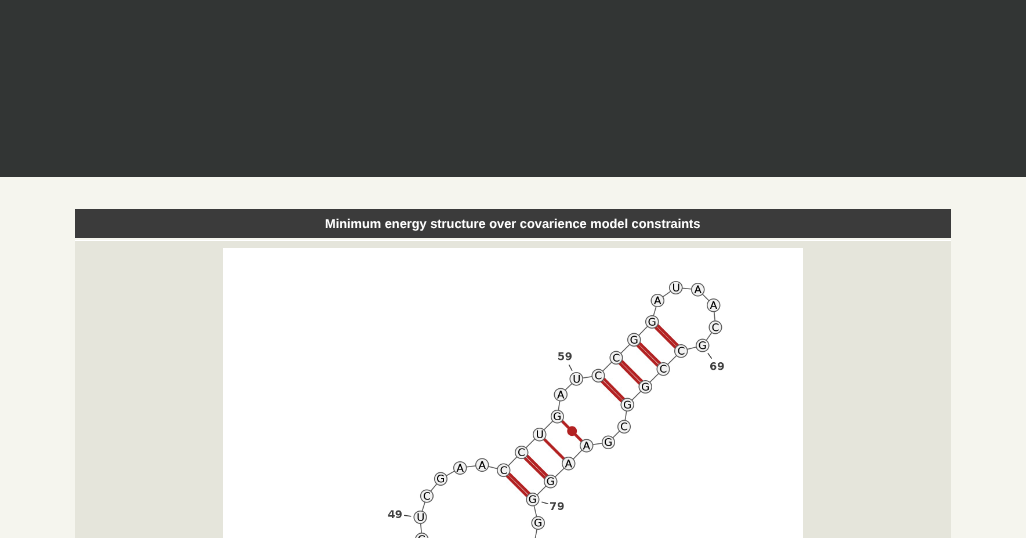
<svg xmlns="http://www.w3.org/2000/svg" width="1026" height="538">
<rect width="100%" height="100%" fill="#f5f5ee"/>
<rect width="1026" height="177" fill="#323534"/>
<rect x="75" y="209" width="876" height="29" fill="#3b3b3b"/>
<text x="325" y="228" style="font-family:Liberation Sans;font-size:12.8px;font-weight:bold;fill:#fff">Minimum energy structure over covarience model constraints</text>
<rect x="75" y="241" width="876" height="297" fill="#e5e5db"/>
<rect x="75" y="240" width="876" height="1" fill="#fff"/>
<image x="223" y="248" width="580" height="290" href="media/1.png"/>
</svg>
